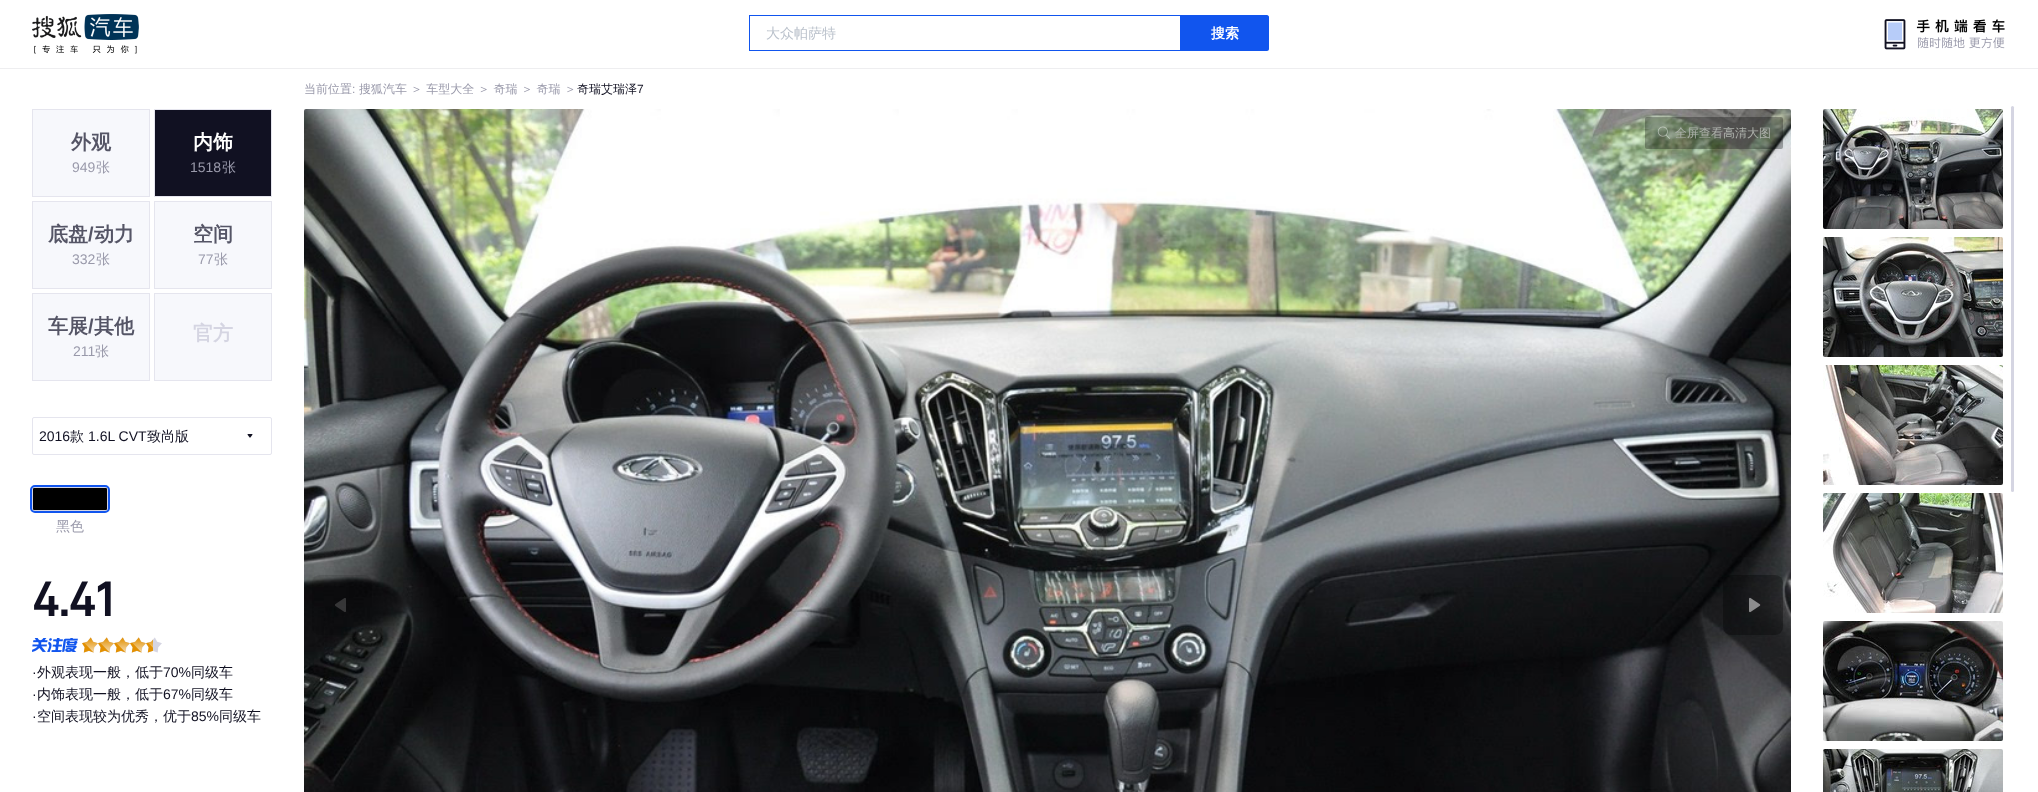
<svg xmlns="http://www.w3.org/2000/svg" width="2038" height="792">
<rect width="100%" height="100%" fill="#fff"/>
<rect y="68" width="2038" height="1" fill="#eeeef0"/>
<image x="32" y="14" width="107" height="40" href="media/1.png"/>
<rect x="749.5" y="15.5" width="431" height="35" fill="none" stroke="#15e"/>
<text x="766" y="38" style="font-family:WenQuanYi Zen Hei;font-size:14px;font-weight:500;fill:#bbc2cc">大众帕萨特</text>
<path d="M1181 15h86c1 0 2 1 2 2v32c0 1-1 2-2 2h-86z" fill="#15e"/>
<text x="1211" y="38" style="font-family:WenQuanYi Zen Hei;font-size:14px;font-weight:bold;fill:#fff">搜索</text>
<image x="1884" y="19" width="121" height="31" href="media/2.png"/>
<text x="304" y="93" style="font-family:WenQuanYi Zen Hei;font-size:12px;font-weight:500;fill:#99a">当前位置</text>
<text x="352" y="93" style="font-family:Liberation Sans;font-size:12px;fill:#99a">:</text>
<text x="359" y="93" style="font-family:WenQuanYi Zen Hei;font-size:12px;font-weight:500;fill:#99a">搜狐汽车 ＞ 车型大全 ＞ 奇瑞 ＞ 奇瑞 ＞</text>
<text x="577" y="93" style="font-family:WenQuanYi Zen Hei;font-size:12px;font-weight:500;fill:#112">奇瑞艾瑞泽</text>
<text x="637" y="93" style="font-family:Liberation Sans;font-size:12px;fill:#112">7</text>
<rect x="32.5" y="109.5" width="117" height="87" fill="#f7f8fc" stroke="#e5e5ee"/>
<text x="71" y="149" style="font-family:WenQuanYi Zen Hei;font-size:20px;font-weight:bold;fill:#556">外观</text>
<text x="72" y="172" style="font-family:Liberation Sans;font-size:14px;fill:#99a">949</text>
<text x="96" y="172" style="font-family:WenQuanYi Zen Hei;font-size:14px;font-weight:500;fill:#99a">张</text>
<rect x="154.5" y="109.5" width="117" height="87" fill="#112" stroke="#e5e5ee"/>
<text x="193" y="149" style="font-family:WenQuanYi Zen Hei;font-size:20px;font-weight:bold;fill:#fff">内饰</text>
<text x="190" y="172" style="font-family:Liberation Sans;font-size:14px;fill:#99a">1518</text>
<text x="222" y="172" style="font-family:WenQuanYi Zen Hei;font-size:14px;font-weight:500;fill:#99a">张</text>
<rect x="32.5" y="201.5" width="117" height="87" fill="#f7f8fc" stroke="#e5e5ee"/>
<text x="48" y="241" style="font-family:WenQuanYi Zen Hei;font-size:20px;font-weight:bold;fill:#556">底盘</text>
<text x="88" y="241" style="font-family:Liberation Sans;font-size:20px;font-weight:bold;fill:#556">/</text>
<text x="94" y="241" style="font-family:WenQuanYi Zen Hei;font-size:20px;font-weight:bold;fill:#556">动力</text>
<text x="72" y="264" style="font-family:Liberation Sans;font-size:14px;fill:#99a">332</text>
<text x="96" y="264" style="font-family:WenQuanYi Zen Hei;font-size:14px;font-weight:500;fill:#99a">张</text>
<rect x="154.5" y="201.5" width="117" height="87" fill="#f7f8fc" stroke="#e5e5ee"/>
<text x="193" y="241" style="font-family:WenQuanYi Zen Hei;font-size:20px;font-weight:bold;fill:#556">空间</text>
<text x="198" y="264" style="font-family:Liberation Sans;font-size:14px;fill:#99a">77</text>
<text x="214" y="264" style="font-family:WenQuanYi Zen Hei;font-size:14px;font-weight:500;fill:#99a">张</text>
<rect x="32.5" y="293.5" width="117" height="87" fill="#f7f8fc" stroke="#e5e5ee"/>
<text x="48" y="333" style="font-family:WenQuanYi Zen Hei;font-size:20px;font-weight:bold;fill:#556">车展</text>
<text x="88" y="333" style="font-family:Liberation Sans;font-size:20px;font-weight:bold;fill:#556">/</text>
<text x="94" y="333" style="font-family:WenQuanYi Zen Hei;font-size:20px;font-weight:bold;fill:#556">其他</text>
<text x="73" y="356" style="font-family:Liberation Sans;font-size:14px;fill:#99a">211</text>
<text x="95" y="356" style="font-family:WenQuanYi Zen Hei;font-size:14px;font-weight:500;fill:#99a">张</text>
<rect x="154.5" y="293.5" width="117" height="87" fill="#f7f8fc" stroke="#e5e5ee"/>
<text x="193" y="340" style="font-family:WenQuanYi Zen Hei;font-size:20px;font-weight:bold;fill:#d5d5e2">官方</text>
<rect x="32.5" y="417.5" width="239" height="37" rx="1.5" fill="none" stroke="#e5e5ee"/>
<text x="39" y="441" style="font-family:Liberation Sans;font-size:14px;fill:#112">2016</text>
<text x="70" y="441" style="font-family:WenQuanYi Zen Hei;font-size:14px;font-weight:500;fill:#112">款</text>
<text x="88" y="441" style="font-family:Liberation Sans;font-size:14px;fill:#112">1.6L CVT</text>
<text x="147" y="441" style="font-family:WenQuanYi Zen Hei;font-size:14px;font-weight:500;fill:#112">致尚版</text>
<image x="247" y="434" width="6" height="4" href="media/3.png"/>
<rect x="32.5" y="487.5" width="75" height="23" rx="1.5" fill="none" stroke="#d5d5e2"/>
<rect x="33" y="488" width="74" height="22" rx="1" fill="#000"/>
<rect x="31" y="486" width="78" height="26" rx="4" fill="none" stroke="#15e" stroke-width="2"/>
<text x="56" y="531" style="font-family:WenQuanYi Zen Hei;font-size:14px;font-weight:500;fill:#99a">黑色</text>
<text x="32" y="616" style="font-family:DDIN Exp;font-size:48px;font-weight:bold;fill:#112">4.41</text>
<image x="32" y="638" width="46" height="14" href="media/4.png"/>
<image x="82" y="637" width="16" height="16" href="media/5.png"/>
<image x="82" y="637" width="16" height="16" href="media/6.png"/>
<image x="98" y="637" width="16" height="16" href="media/5.png"/>
<image x="98" y="637" width="16" height="16" href="media/6.png"/>
<image x="114" y="637" width="16" height="16" href="media/5.png"/>
<image x="114" y="637" width="16" height="16" href="media/6.png"/>
<image x="130" y="637" width="16" height="16" href="media/5.png"/>
<image x="130" y="637" width="16" height="16" href="media/6.png"/>
<image x="146" y="637" width="16" height="16" href="media/5.png"/>
<image x="146" y="639" width="7" height="14" href="media/7.png"/>
<text x="32" y="677" style="font-family:Liberation Sans;font-size:14px;fill:#112">·</text>
<text x="37" y="677" style="font-family:WenQuanYi Zen Hei;font-size:14px;font-weight:500;fill:#112">外观表现一般，低于</text>
<text x="163" y="677" style="font-family:Liberation Sans;font-size:14px;fill:#112">70%</text>
<text x="191" y="677" style="font-family:WenQuanYi Zen Hei;font-size:14px;font-weight:500;fill:#112">同级车</text>
<text x="32" y="699" style="font-family:Liberation Sans;font-size:14px;fill:#112">·</text>
<text x="37" y="699" style="font-family:WenQuanYi Zen Hei;font-size:14px;font-weight:500;fill:#112">内饰表现一般，低于</text>
<text x="163" y="699" style="font-family:Liberation Sans;font-size:14px;fill:#112">67%</text>
<text x="191" y="699" style="font-family:WenQuanYi Zen Hei;font-size:14px;font-weight:500;fill:#112">同级车</text>
<text x="32" y="721" style="font-family:Liberation Sans;font-size:14px;fill:#112">·</text>
<text x="37" y="721" style="font-family:WenQuanYi Zen Hei;font-size:14px;font-weight:500;fill:#112">空间表现较为优秀，优于</text>
<text x="191" y="721" style="font-family:Liberation Sans;font-size:14px;fill:#112">85%</text>
<text x="219" y="721" style="font-family:WenQuanYi Zen Hei;font-size:14px;font-weight:500;fill:#112">同级车</text>
<image x="304" y="109" width="1487" height="683" href="media/8.png"/>
<rect x="1645" y="117" width="138" height="32" rx="2" fill="#0000004d"/>
<image x="1657" y="126" width="13" height="13" href="media/9.png"/>
<text x="1675" y="137" style="font-family:WenQuanYi Zen Hei;font-size:12px;font-weight:500;fill:#adb1ab">全屏查看高清大图</text>
<rect x="312" y="575" width="60" height="60" rx="8" fill="#0000001a"/>
<image x="335" y="598" width="11" height="14" href="media/10.png"/>
<rect x="1723" y="575" width="60" height="60" rx="8" fill="#0000004d"/>
<image x="1749" y="597" width="12" height="16" href="media/11.png"/>
<image x="1823" y="109" width="180" height="120" href="media/12.png"/>
<image x="1823" y="237" width="180" height="120" href="media/13.png"/>
<image x="1823" y="365" width="180" height="120" href="media/14.png"/>
<image x="1823" y="493" width="180" height="120" href="media/15.png"/>
<image x="1823" y="621" width="180" height="120" href="media/16.png"/>
<image x="1823" y="749" width="180" height="43" href="media/17.png"/>
<rect x="2011" y="106" width="3" height="386" rx="1.5" fill="#d5d5e2"/>
</svg>
